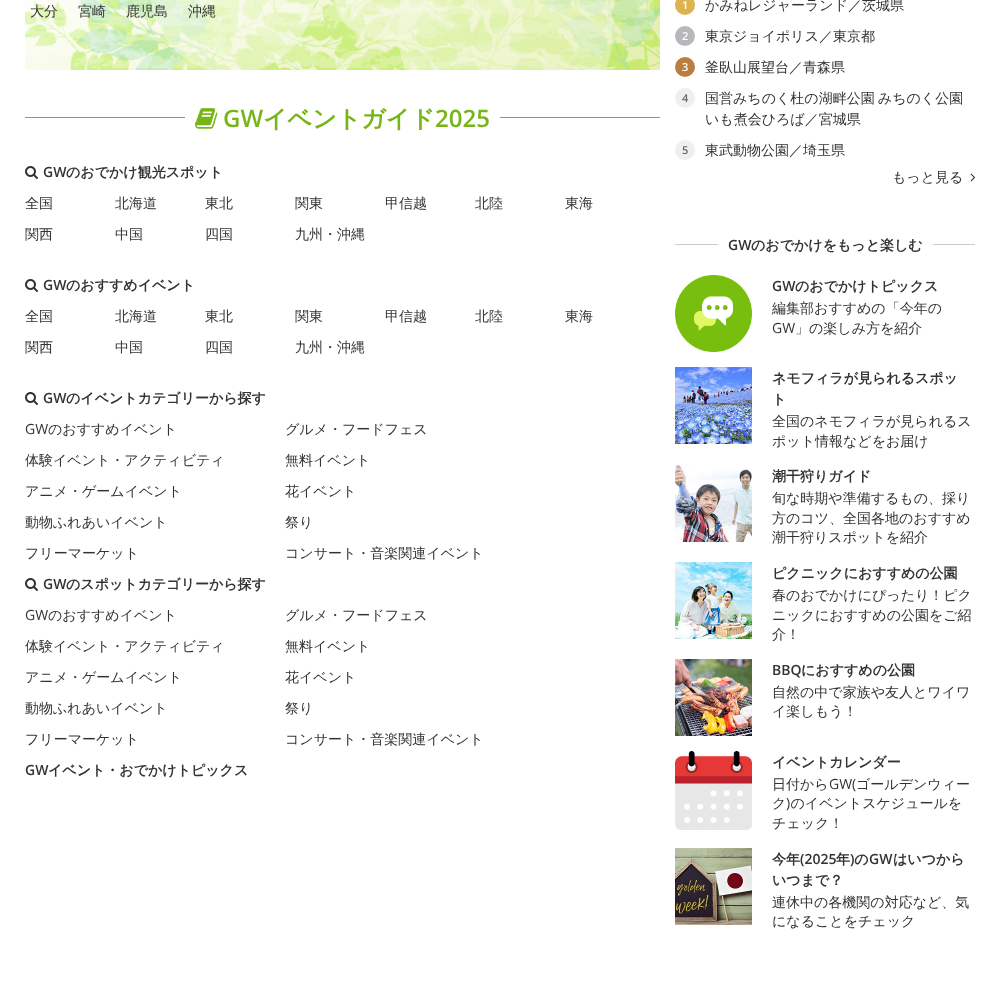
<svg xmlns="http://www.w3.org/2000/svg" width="999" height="1006">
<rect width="100%" height="100%" fill="#fff"/>
<image x="25" y="0" width="635" height="70" href="media/1.png"/>
<text x="30" y="16" style="font-family:WenQuanYi Zen Hei;font-size:14px;font-weight:500;fill:#333">大分</text>
<text x="78" y="16" style="font-family:WenQuanYi Zen Hei;font-size:14px;font-weight:500;fill:#333">宮崎</text>
<text x="126" y="16" style="font-family:WenQuanYi Zen Hei;font-size:14px;font-weight:500;fill:#333">鹿児島</text>
<text x="188" y="16" style="font-family:WenQuanYi Zen Hei;font-size:14px;font-weight:500;fill:#333">沖縄</text>
<rect x="25" y="117" width="160" height="1" fill="#76b518"/>
<image x="195" y="108" width="23" height="21" href="media/2.png"/>
<text x="223" y="127" style="font-family:Open Sans;font-size:24px;font-weight:600;fill:#76b518">GW</text>
<text x="263" y="127" style="font-family:WenQuanYi Zen Hei;font-size:24px;font-weight:bold;fill:#76b518">イベントガイド</text>
<text x="435" y="127" style="font-family:Open Sans;font-size:24px;font-weight:600;fill:#76b518">2025</text>
<rect x="500" y="117" width="160" height="1" fill="#76b518"/>
<image x="25" y="166" width="13" height="13" href="media/3.png"/>
<text x="43" y="177" style="font-family:Open Sans;font-size:14px;font-weight:600;fill:#333">GW</text>
<text x="66" y="177" style="font-family:WenQuanYi Zen Hei;font-size:14px;font-weight:bold;fill:#333">のおでかけ観光スポット</text>
<text x="25" y="208" style="font-family:WenQuanYi Zen Hei;font-size:14px;font-weight:500;fill:#333">全国</text>
<text x="115" y="208" style="font-family:WenQuanYi Zen Hei;font-size:14px;font-weight:500;fill:#333">北海道</text>
<text x="205" y="208" style="font-family:WenQuanYi Zen Hei;font-size:14px;font-weight:500;fill:#333">東北</text>
<text x="295" y="208" style="font-family:WenQuanYi Zen Hei;font-size:14px;font-weight:500;fill:#333">関東</text>
<text x="385" y="208" style="font-family:WenQuanYi Zen Hei;font-size:14px;font-weight:500;fill:#333">甲信越</text>
<text x="475" y="208" style="font-family:WenQuanYi Zen Hei;font-size:14px;font-weight:500;fill:#333">北陸</text>
<text x="565" y="208" style="font-family:WenQuanYi Zen Hei;font-size:14px;font-weight:500;fill:#333">東海</text>
<text x="25" y="239" style="font-family:WenQuanYi Zen Hei;font-size:14px;font-weight:500;fill:#333">関西</text>
<text x="115" y="239" style="font-family:WenQuanYi Zen Hei;font-size:14px;font-weight:500;fill:#333">中国</text>
<text x="205" y="239" style="font-family:WenQuanYi Zen Hei;font-size:14px;font-weight:500;fill:#333">四国</text>
<text x="295" y="239" style="font-family:WenQuanYi Zen Hei;font-size:14px;font-weight:500;fill:#333">九州・沖縄</text>
<image x="25" y="279" width="13" height="13" href="media/3.png"/>
<text x="43" y="290" style="font-family:Open Sans;font-size:14px;font-weight:600;fill:#333">GW</text>
<text x="66" y="290" style="font-family:WenQuanYi Zen Hei;font-size:14px;font-weight:bold;fill:#333">のおすすめイベント</text>
<text x="25" y="321" style="font-family:WenQuanYi Zen Hei;font-size:14px;font-weight:500;fill:#333">全国</text>
<text x="115" y="321" style="font-family:WenQuanYi Zen Hei;font-size:14px;font-weight:500;fill:#333">北海道</text>
<text x="205" y="321" style="font-family:WenQuanYi Zen Hei;font-size:14px;font-weight:500;fill:#333">東北</text>
<text x="295" y="321" style="font-family:WenQuanYi Zen Hei;font-size:14px;font-weight:500;fill:#333">関東</text>
<text x="385" y="321" style="font-family:WenQuanYi Zen Hei;font-size:14px;font-weight:500;fill:#333">甲信越</text>
<text x="475" y="321" style="font-family:WenQuanYi Zen Hei;font-size:14px;font-weight:500;fill:#333">北陸</text>
<text x="565" y="321" style="font-family:WenQuanYi Zen Hei;font-size:14px;font-weight:500;fill:#333">東海</text>
<text x="25" y="352" style="font-family:WenQuanYi Zen Hei;font-size:14px;font-weight:500;fill:#333">関西</text>
<text x="115" y="352" style="font-family:WenQuanYi Zen Hei;font-size:14px;font-weight:500;fill:#333">中国</text>
<text x="205" y="352" style="font-family:WenQuanYi Zen Hei;font-size:14px;font-weight:500;fill:#333">四国</text>
<text x="295" y="352" style="font-family:WenQuanYi Zen Hei;font-size:14px;font-weight:500;fill:#333">九州・沖縄</text>
<image x="25" y="392" width="13" height="13" href="media/3.png"/>
<text x="43" y="403" style="font-family:Open Sans;font-size:14px;font-weight:600;fill:#333">GW</text>
<text x="66" y="403" style="font-family:WenQuanYi Zen Hei;font-size:14px;font-weight:bold;fill:#333">のイベントカテゴリーから探す</text>
<text x="25" y="434" style="font-family:Open Sans;font-size:14px;fill:#333">GW</text>
<text x="48" y="434" style="font-family:WenQuanYi Zen Hei;font-size:14px;font-weight:500;fill:#333">のおすすめイベント</text>
<text x="285" y="434" style="font-family:WenQuanYi Zen Hei;font-size:14px;font-weight:500;fill:#333">グルメ・フードフェス</text>
<text x="25" y="465" style="font-family:WenQuanYi Zen Hei;font-size:14px;font-weight:500;fill:#333">体験イベント・アクティビティ</text>
<text x="285" y="465" style="font-family:WenQuanYi Zen Hei;font-size:14px;font-weight:500;fill:#333">無料イベント</text>
<text x="25" y="496" style="font-family:WenQuanYi Zen Hei;font-size:14px;font-weight:500;fill:#333">アニメ・ゲームイベント</text>
<text x="285" y="496" style="font-family:WenQuanYi Zen Hei;font-size:14px;font-weight:500;fill:#333">花イベント</text>
<text x="25" y="527" style="font-family:WenQuanYi Zen Hei;font-size:14px;font-weight:500;fill:#333">動物ふれあいイベント</text>
<text x="285" y="527" style="font-family:WenQuanYi Zen Hei;font-size:14px;font-weight:500;fill:#333">祭り</text>
<text x="25" y="558" style="font-family:WenQuanYi Zen Hei;font-size:14px;font-weight:500;fill:#333">フリーマーケット</text>
<text x="285" y="558" style="font-family:WenQuanYi Zen Hei;font-size:14px;font-weight:500;fill:#333">コンサート・音楽関連イベント</text>
<image x="25" y="578" width="13" height="13" href="media/3.png"/>
<text x="43" y="589" style="font-family:Open Sans;font-size:14px;font-weight:600;fill:#333">GW</text>
<text x="66" y="589" style="font-family:WenQuanYi Zen Hei;font-size:14px;font-weight:bold;fill:#333">のスポットカテゴリーから探す</text>
<text x="25" y="620" style="font-family:Open Sans;font-size:14px;fill:#333">GW</text>
<text x="48" y="620" style="font-family:WenQuanYi Zen Hei;font-size:14px;font-weight:500;fill:#333">のおすすめイベント</text>
<text x="285" y="620" style="font-family:WenQuanYi Zen Hei;font-size:14px;font-weight:500;fill:#333">グルメ・フードフェス</text>
<text x="25" y="651" style="font-family:WenQuanYi Zen Hei;font-size:14px;font-weight:500;fill:#333">体験イベント・アクティビティ</text>
<text x="285" y="651" style="font-family:WenQuanYi Zen Hei;font-size:14px;font-weight:500;fill:#333">無料イベント</text>
<text x="25" y="682" style="font-family:WenQuanYi Zen Hei;font-size:14px;font-weight:500;fill:#333">アニメ・ゲームイベント</text>
<text x="285" y="682" style="font-family:WenQuanYi Zen Hei;font-size:14px;font-weight:500;fill:#333">花イベント</text>
<text x="25" y="713" style="font-family:WenQuanYi Zen Hei;font-size:14px;font-weight:500;fill:#333">動物ふれあいイベント</text>
<text x="285" y="713" style="font-family:WenQuanYi Zen Hei;font-size:14px;font-weight:500;fill:#333">祭り</text>
<text x="25" y="744" style="font-family:WenQuanYi Zen Hei;font-size:14px;font-weight:500;fill:#333">フリーマーケット</text>
<text x="285" y="744" style="font-family:WenQuanYi Zen Hei;font-size:14px;font-weight:500;fill:#333">コンサート・音楽関連イベント</text>
<text x="25" y="775" style="font-family:Open Sans;font-size:14px;font-weight:600;fill:#333">GW</text>
<text x="48" y="775" style="font-family:WenQuanYi Zen Hei;font-size:14px;font-weight:bold;fill:#333">イベント・おでかけトピックス</text>
<circle cx="685" cy="5" r="10" fill="#deb251"/>
<text x="682" y="9" style="font-family:Open Sans;font-size:11px;font-weight:600;fill:#fff">1</text>
<text x="705" y="10" style="font-family:WenQuanYi Zen Hei;font-size:14px;font-weight:500;fill:#333">かみねレジャーランド／茨城県</text>
<circle cx="685" cy="36" r="10" fill="#b7b8bc"/>
<text x="682" y="40" style="font-family:Open Sans;font-size:11px;font-weight:600;fill:#fff">2</text>
<text x="705" y="41" style="font-family:WenQuanYi Zen Hei;font-size:14px;font-weight:500;fill:#333">東京ジョイポリス／東京都</text>
<circle cx="685" cy="67" r="10" fill="#b97f40"/>
<text x="682" y="71" style="font-family:Open Sans;font-size:11px;font-weight:600;fill:#fff">3</text>
<text x="705" y="72" style="font-family:WenQuanYi Zen Hei;font-size:14px;font-weight:500;fill:#333">釜臥山展望台／青森県</text>
<circle cx="685" cy="98" r="10" fill="#efefef"/>
<text x="682" y="102" style="font-family:Open Sans;font-size:11px;font-weight:600;fill:#666">4</text>
<text x="705" y="103" word-spacing="-1" style="font-family:WenQuanYi Zen Hei;font-size:14px;font-weight:500;fill:#333">国営みちのく杜の湖畔公園 みちのく公園</text>
<text x="705" y="124" style="font-family:WenQuanYi Zen Hei;font-size:14px;font-weight:500;fill:#333">いも煮会ひろば／宮城県</text>
<circle cx="685" cy="150" r="10" fill="#efefef"/>
<text x="682" y="154" style="font-family:Open Sans;font-size:11px;font-weight:600;fill:#666">5</text>
<text x="705" y="155" style="font-family:WenQuanYi Zen Hei;font-size:14px;font-weight:500;fill:#333">東武動物公園／埼玉県</text>
<text x="892" y="182" style="font-family:WenQuanYi Zen Hei;font-size:14px;font-weight:500;fill:#333">もっと見る</text>
<image x="970" y="173" width="6" height="9" href="media/4.png"/>
<rect x="675" y="244" width="43" height="1" fill="#ccc"/>
<text x="728" y="250" style="font-family:Open Sans;font-size:14px;font-weight:600;fill:#333">GW</text>
<text x="751" y="250" style="font-family:WenQuanYi Zen Hei;font-size:14px;font-weight:bold;fill:#333">のおでかけをもっと楽しむ</text>
<rect x="933" y="244" width="42" height="1" fill="#ccc"/>
<image x="675" y="275" width="77" height="77" href="media/5.png"/>
<text x="772" y="291" style="font-family:Open Sans;font-size:14px;font-weight:600;fill:#333">GW</text>
<text x="795" y="291" style="font-family:WenQuanYi Zen Hei;font-size:14px;font-weight:bold;fill:#333">のおでかけトピックス</text>
<text x="772" y="313" style="font-family:WenQuanYi Zen Hei;font-size:14px;font-weight:500;fill:#333">編集部おすすめの「今年の</text>
<text x="772" y="333" style="font-family:Open Sans;font-size:14px;fill:#333">GW</text>
<text x="795" y="333" style="font-family:WenQuanYi Zen Hei;font-size:14px;font-weight:500;fill:#333">」の楽しみ方を紹介</text>
<image x="675" y="367" width="77" height="77" href="media/6.png"/>
<text x="772" y="383" style="font-family:WenQuanYi Zen Hei;font-size:14px;font-weight:bold;fill:#333">ネモフィラが見られるスポッ</text>
<text x="772" y="404" style="font-family:WenQuanYi Zen Hei;font-size:14px;font-weight:bold;fill:#333">ト</text>
<text x="772" y="426" style="font-family:WenQuanYi Zen Hei;font-size:14px;font-weight:500;fill:#333">全国のネモフィラが見られるス</text>
<text x="772" y="446" style="font-family:WenQuanYi Zen Hei;font-size:14px;font-weight:500;fill:#333">ポット情報などをお届け</text>
<image x="675" y="465" width="77" height="77" href="media/7.png"/>
<text x="772" y="481" style="font-family:WenQuanYi Zen Hei;font-size:14px;font-weight:bold;fill:#333">潮干狩りガイド</text>
<text x="772" y="503" style="font-family:WenQuanYi Zen Hei;font-size:14px;font-weight:500;fill:#333">旬な時期や準備するもの、採り</text>
<text x="772" y="523" style="font-family:WenQuanYi Zen Hei;font-size:14px;font-weight:500;fill:#333">方のコツ、全国各地のおすすめ</text>
<text x="772" y="542" style="font-family:WenQuanYi Zen Hei;font-size:14px;font-weight:500;fill:#333">潮干狩りスポットを紹介</text>
<image x="675" y="562" width="77" height="77" href="media/8.png"/>
<text x="772" y="578" style="font-family:WenQuanYi Zen Hei;font-size:14px;font-weight:bold;fill:#333">ピクニックにおすすめの公園</text>
<text x="772" y="600" style="font-family:WenQuanYi Zen Hei;font-size:14px;font-weight:500;fill:#333">春のおでかけにぴったり！ピク</text>
<text x="772" y="620" style="font-family:WenQuanYi Zen Hei;font-size:14px;font-weight:500;fill:#333">ニックにおすすめの公園をご紹</text>
<text x="772" y="639" style="font-family:WenQuanYi Zen Hei;font-size:14px;font-weight:500;fill:#333">介！</text>
<image x="675" y="659" width="77" height="77" href="media/9.png"/>
<text x="772" y="675" style="font-family:Open Sans;font-size:14px;font-weight:600;fill:#333">BBQ</text>
<text x="801" y="675" style="font-family:WenQuanYi Zen Hei;font-size:14px;font-weight:bold;fill:#333">におすすめの公園</text>
<text x="772" y="697" style="font-family:WenQuanYi Zen Hei;font-size:14px;font-weight:500;fill:#333">自然の中で家族や友人とワイワ</text>
<text x="772" y="716" style="font-family:WenQuanYi Zen Hei;font-size:14px;font-weight:500;fill:#333">イ楽しもう！</text>
<image x="675" y="751" width="77" height="79" href="media/10.png"/>
<text x="772" y="767" style="font-family:WenQuanYi Zen Hei;font-size:14px;font-weight:bold;fill:#333">イベントカレンダー</text>
<text x="772" y="789" style="font-family:WenQuanYi Zen Hei;font-size:14px;font-weight:500;fill:#333">日付から</text>
<text x="829" y="789" style="font-family:Open Sans;font-size:14px;fill:#333">GW(</text>
<text x="856" y="789" style="font-family:WenQuanYi Zen Hei;font-size:14px;font-weight:500;fill:#333">ゴールデンウィー</text>
<text x="772" y="808" style="font-family:WenQuanYi Zen Hei;font-size:14px;font-weight:500;fill:#333">ク のイベントスケジュールを</text>
<text x="786" y="808" style="font-family:Open Sans;font-size:14px;fill:#333">)</text>
<text x="772" y="828" style="font-family:WenQuanYi Zen Hei;font-size:14px;font-weight:500;fill:#333">チェック！</text>
<image x="675" y="848" width="77" height="77" href="media/11.png"/>
<text x="772" y="864" style="font-family:WenQuanYi Zen Hei;font-size:14px;font-weight:bold;fill:#333">今年</text>
<text x="800" y="864" style="font-family:Open Sans;font-size:14px;font-weight:600;fill:#333">(2025</text>
<text x="836" y="864" style="font-family:WenQuanYi Zen Hei;font-size:14px;font-weight:bold;fill:#333">年 の</text>
<text x="869" y="864" style="font-family:Open Sans;font-size:14px;font-weight:600;fill:#333">GW</text>
<text x="893" y="864" style="font-family:WenQuanYi Zen Hei;font-size:14px;font-weight:bold;fill:#333">はいつから</text>
<text x="850" y="864" style="font-family:Open Sans;font-size:14px;font-weight:600;fill:#333">)</text>
<text x="772" y="885" style="font-family:WenQuanYi Zen Hei;font-size:14px;font-weight:bold;fill:#333">いつまで？</text>
<text x="772" y="907" style="font-family:WenQuanYi Zen Hei;font-size:14px;font-weight:500;fill:#333">連休中の各機関の対応など、気</text>
<text x="772" y="926" style="font-family:WenQuanYi Zen Hei;font-size:14px;font-weight:500;fill:#333">になることをチェック</text>
</svg>
